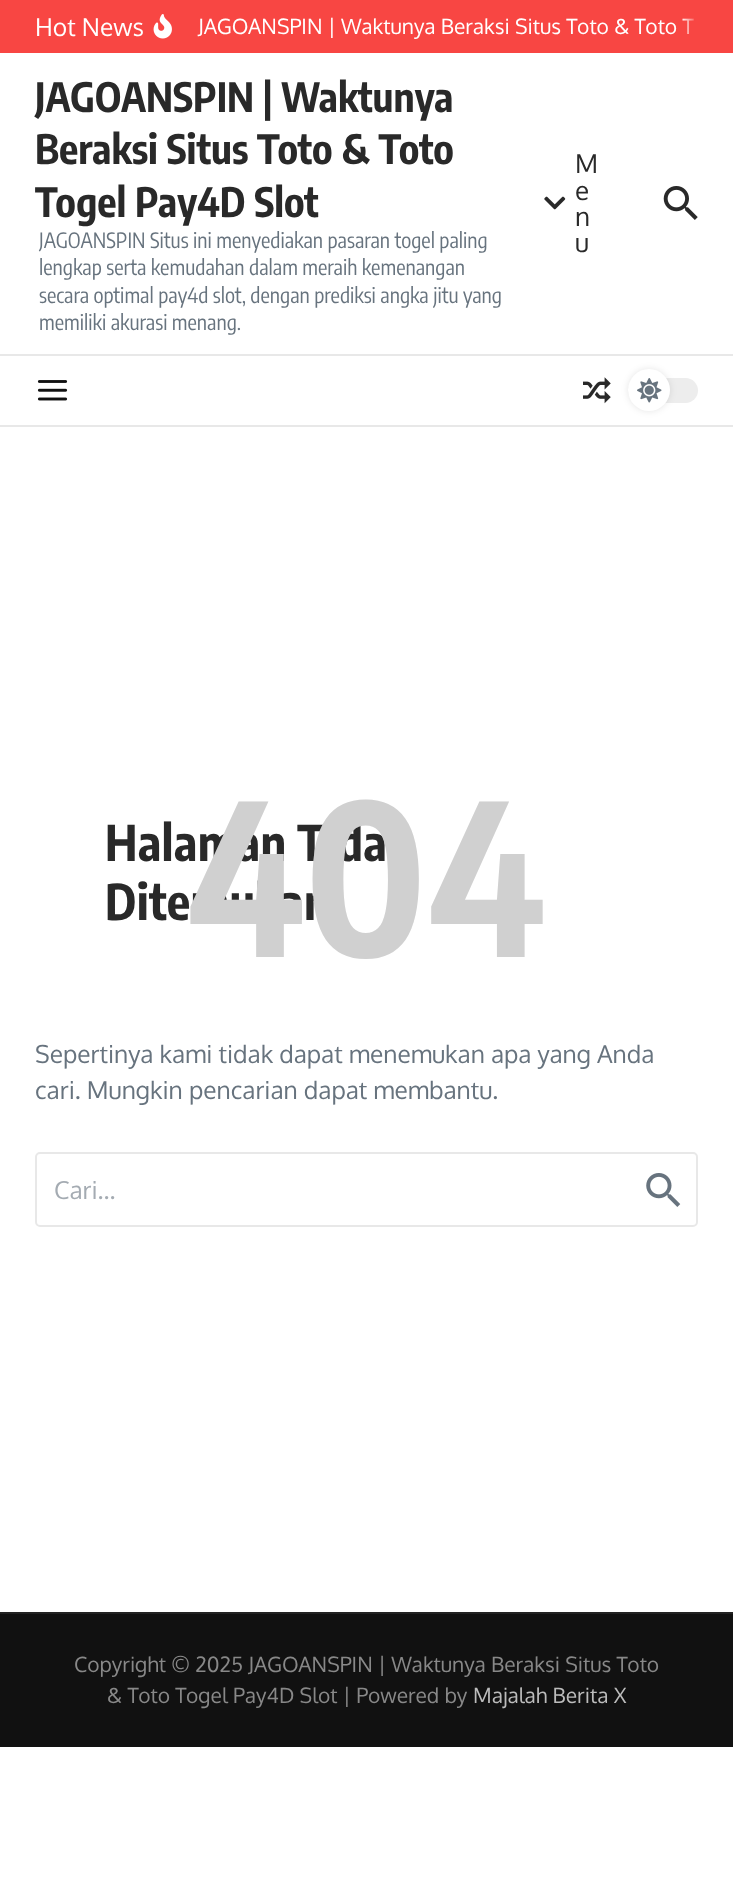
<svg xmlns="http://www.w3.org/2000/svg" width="733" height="1882">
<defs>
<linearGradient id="g1" gradientUnits="userSpaceOnUse" x1="681" y1="26" x2="698" y2="26"><stop offset="0" stop-color="#f84643" stop-opacity="0"/><stop offset="1" stop-color="#f84643"/></linearGradient>
</defs>
<rect width="100%" height="100%" fill="#fff"/>
<rect width="733" height="53" fill="#f84643"/>
<text x="35" y="36" style="font-family:Oxygen;font-size:24.5px;fill:#fff">Hot News</text>
<image x="153" y="14" width="19" height="25" href="media/1.png"/>
<text x="198" y="34" style="font-family:Oxygen;font-size:21px;fill:#fff">JAGOANSPIN | Waktunya Beraksi Situs Toto &amp; Toto T</text>
<rect x="682" y="18" width="12" height="16" fill="url(#g1)"/>
<rect y="354" width="733" height="2" fill="#e8e8e8"/>
<text x="35" y="112" style="font-family:Encode Sans Condensed;font-size:40.25px;font-weight:bold;fill:#292929">JAGOANSPIN | Waktunya</text>
<text x="35" y="164" style="font-family:Encode Sans Condensed;font-size:40.25px;font-weight:bold;fill:#292929">Beraksi Situs Toto &amp; Toto</text>
<text x="35" y="217" style="font-family:Encode Sans Condensed;font-size:40.25px;font-weight:bold;fill:#292929">Togel Pay4D Slot</text>
<text x="39" y="248" style="font-family:Encode Sans Condensed;font-size:21px;fill:#67737e">JAGOANSPIN Situs ini menyediakan pasaran togel paling</text>
<text x="39" y="275" style="font-family:Encode Sans Condensed;font-size:21px;fill:#67737e">lengkap serta kemudahan dalam meraih kemenangan</text>
<text x="39" y="303" style="font-family:Encode Sans Condensed;font-size:21px;fill:#67737e">secara optimal pay4d slot, dengan prediksi angka jitu yang</text>
<text x="39" y="330" style="font-family:Encode Sans Condensed;font-size:21px;fill:#67737e">memiliki akurasi menang.</text>
<image x="544" y="196" width="22" height="14" href="media/2.png"/>
<text x="575" y="173" style="font-family:Oxygen;font-size:26px;fill:#292929">M</text>
<text x="575" y="200" style="font-family:Oxygen;font-size:26px;fill:#292929">e</text>
<text x="575" y="226" style="font-family:Oxygen;font-size:26px;fill:#292929">n</text>
<text x="575" y="252" style="font-family:Oxygen;font-size:26px;fill:#292929">u</text>
<image x="663" y="186" width="35" height="34" href="media/3.png"/>
<rect y="425" width="733" height="2" fill="#e8e8e8"/>
<image x="37" y="380" width="31" height="21" href="media/4.png"/>
<image x="583" y="377" width="28" height="27" href="media/5.png"/>
<rect x="628" y="378" width="70" height="25" rx="12.5" fill="#ededed"/>
<rect x="628" y="369" width="42" height="42" rx="21" fill="#0000001a" filter="blur(3.5px)"/>
<circle cx="649" cy="390" r="21" fill="#fff"/>
<image x="637" y="378" width="25" height="25" href="media/6.png"/>
<text x="105" y="861" style="font-family:Encode Sans Condensed;font-size:49px;font-weight:bold;letter-spacing:0.3px;fill:#292929">Halaman Tidak</text>
<text x="105" y="920" style="font-family:Encode Sans Condensed;font-size:49px;font-weight:bold;letter-spacing:0.3px;fill:#292929">Ditemukan</text>
<text x="187" y="957" style="font-family:Encode Sans Condensed;font-size:210px;font-weight:bold;letter-spacing:0.3px;fill:#d0d0d0">404</text>
<text x="35" y="1063" style="font-family:Oxygen;font-size:24.5px;fill:#67737e">Sepertinya kami tidak dapat menemukan apa yang Anda</text>
<text x="35" y="1099" style="font-family:Oxygen;font-size:24.5px;fill:#67737e">cari. Mungkin pencarian dapat membantu.</text>
<rect x="36" y="1153" width="661" height="73" rx="4" fill="none" stroke="#e8e8e8" stroke-width="2"/>
<text x="54" y="1199" style="font-family:Oxygen;font-size:24.5px;fill:#a4abb2">Cari...</text>
<image x="646" y="1173" width="35" height="34" href="media/7.png"/>
<rect y="1614" width="733" height="133" fill="#111"/>
<rect y="1612" width="733" height="2" fill="#222"/>
<text x="74" y="1672" style="font-family:Oxygen;font-size:21px;fill:#888">Copyright © 2025 JAGOANSPIN | Waktunya Beraksi Situs Toto</text>
<text x="107" y="1703" style="font-family:Oxygen;font-size:21px;fill:#888">&amp; Toto Togel Pay4D Slot | Powered by</text>
<text x="473" y="1703" style="font-family:Oxygen;font-size:21px;fill:#bcbcbc">Majalah Berita X</text>
</svg>
